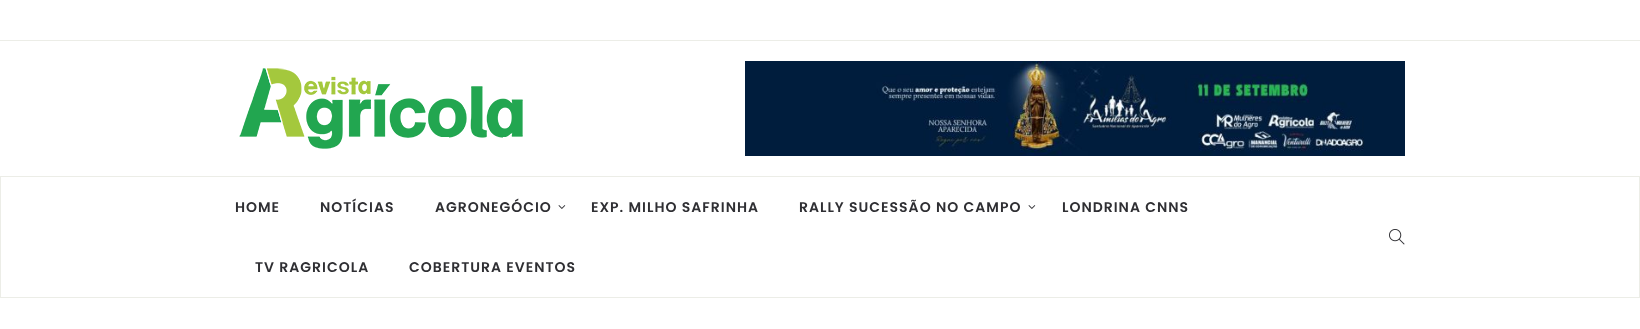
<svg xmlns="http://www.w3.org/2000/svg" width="1640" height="329">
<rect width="100%" height="100%" fill="#fff"/>
<rect y="40" width="1640" height="1" fill="#ecede7"/>
<image x="239" y="68" width="284" height="81" href="media/1.png"/>
<image x="745" y="61" width="660" height="95" href="media/2.png"/>
<rect x="0.5" y="176.5" width="1639" height="121" fill="none" stroke="#ecede7"/>
<text x="235" y="212" style="font-family:Poppins;font-size:14px;font-weight:600;letter-spacing:1px;fill:#2f2f33">HOME</text>
<text x="320" y="212" style="font-family:Poppins;font-size:14px;font-weight:600;letter-spacing:1px;fill:#2f2f33">NOTÍCIAS</text>
<text x="435" y="212" style="font-family:Poppins;font-size:14px;font-weight:600;letter-spacing:1px;fill:#2f2f33">AGRONEGÓCIO</text>
<image x="558" y="205" width="8" height="4" href="media/3.png"/>
<text x="591" y="212" style="font-family:Poppins;font-size:14px;font-weight:600;letter-spacing:1px;fill:#2f2f33">EXP. MILHO SAFRINHA</text>
<text x="799" y="212" style="font-family:Poppins;font-size:14px;font-weight:600;letter-spacing:1px;fill:#2f2f33">RALLY SUCESSÃO NO CAMPO</text>
<image x="1028" y="205" width="8" height="4" href="media/3.png"/>
<text x="1062" y="212" style="font-family:Poppins;font-size:14px;font-weight:600;letter-spacing:1px;fill:#2f2f33">LONDRINA CNNS</text>
<text x="255" y="272" style="font-family:Poppins;font-size:14px;font-weight:600;letter-spacing:1px;fill:#2f2f33">TV RAGRICOLA</text>
<text x="409" y="272" style="font-family:Poppins;font-size:14px;font-weight:600;letter-spacing:1px;fill:#2f2f33">COBERTURA EVENTOS</text>
<image x="1389" y="229" width="16" height="16" href="media/4.png"/>
</svg>
